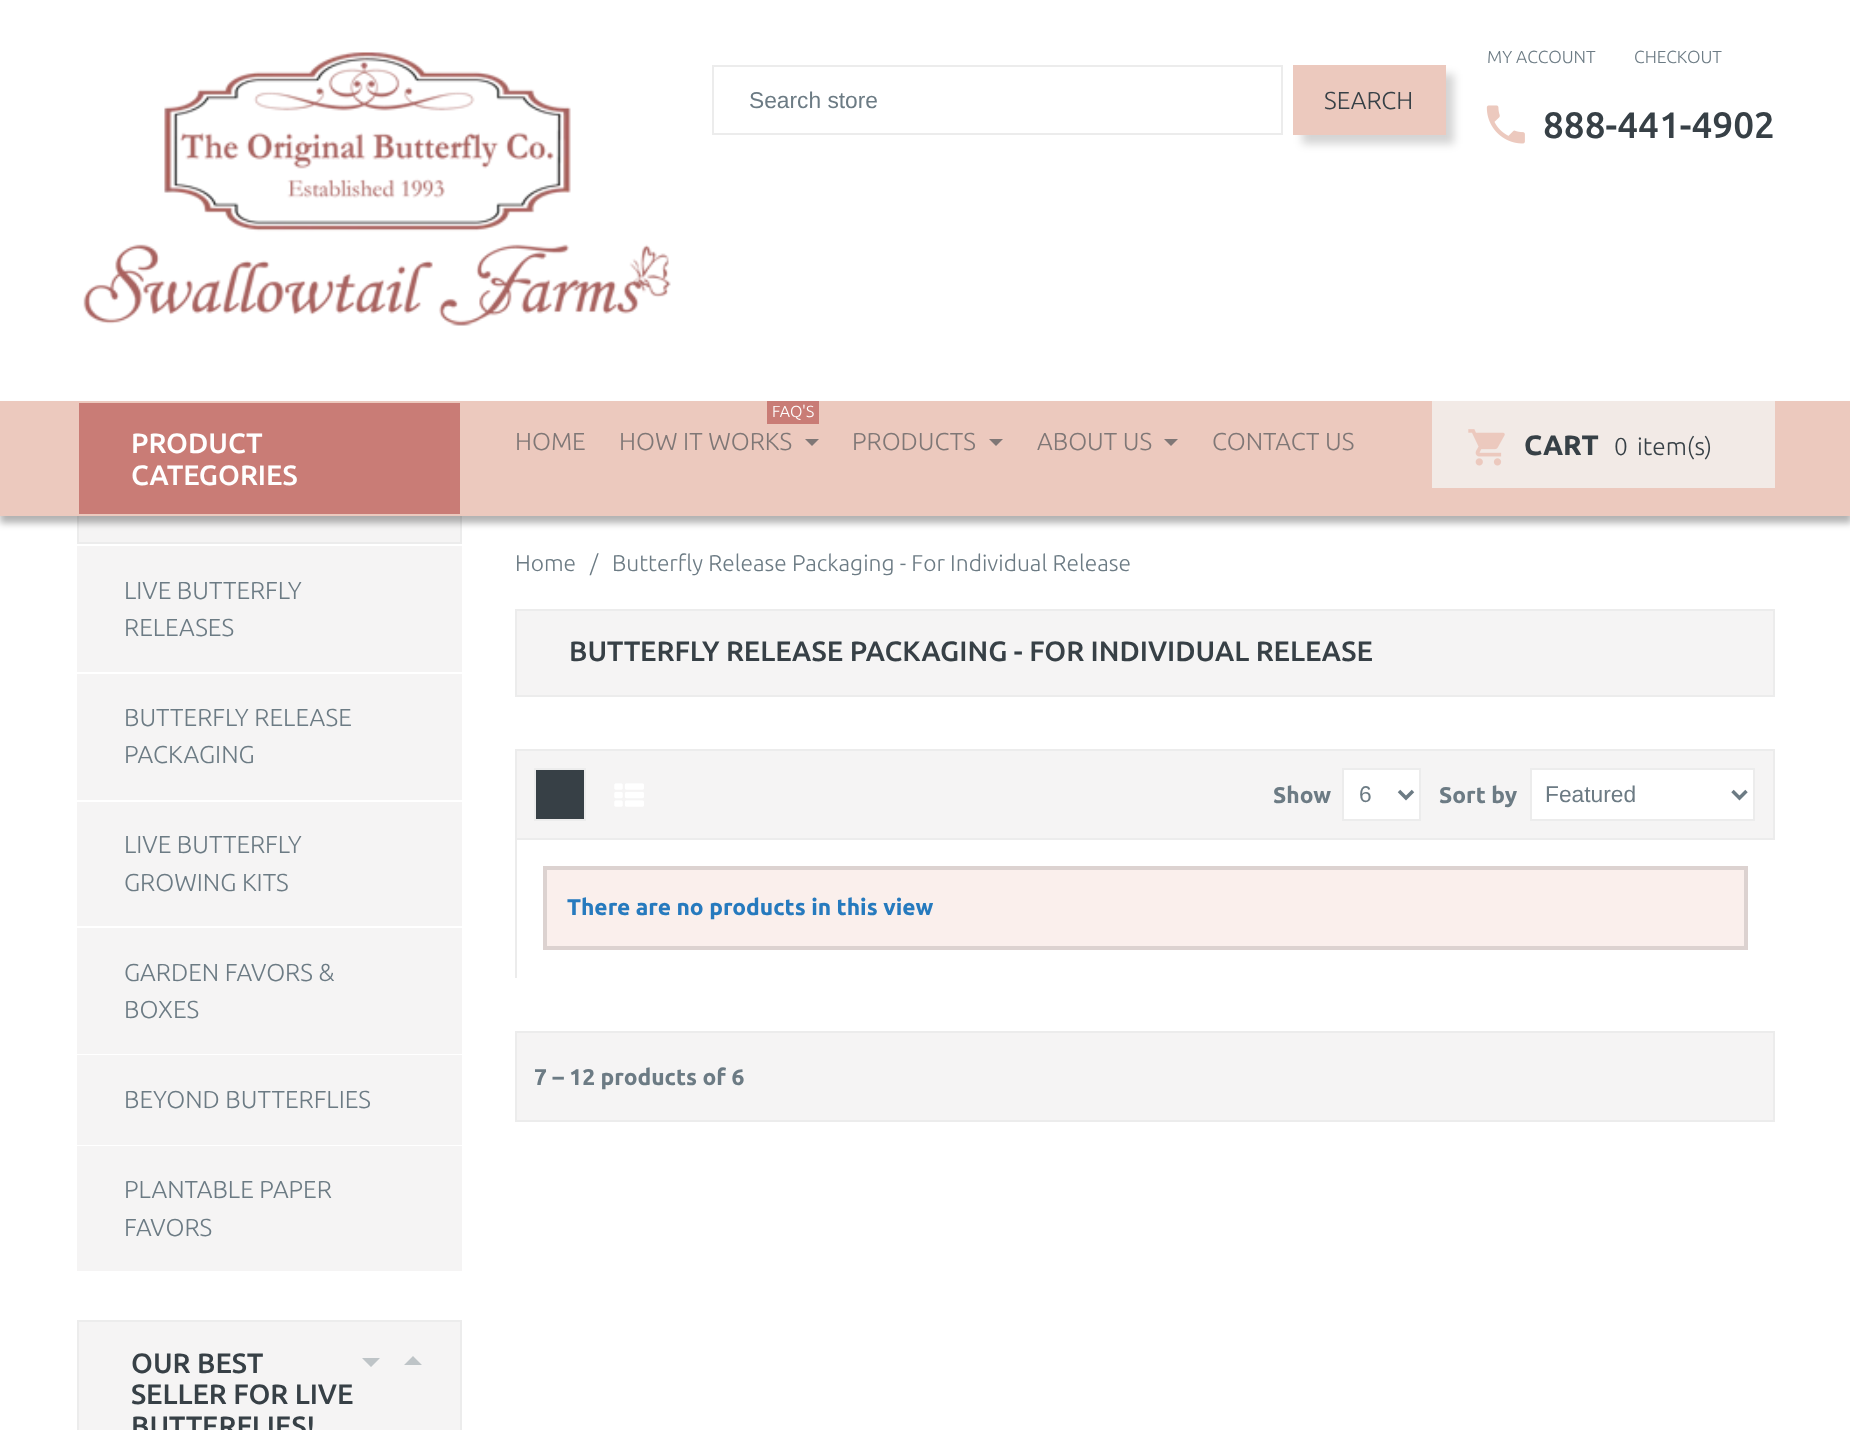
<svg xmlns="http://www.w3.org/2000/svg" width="1850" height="1430">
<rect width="100%" height="100%" fill="#fff"/>
<image x="83" y="52" width="588" height="274" href="media/1.png"/>
<rect x="713" y="66" width="569" height="68" fill="none" stroke="#ececec" stroke-width="2"/>
<text x="749" y="108" style="font-family:Liberation Sans;font-size:22.75px;fill:#6c7b84">Search store</text>
<rect x="1302" y="74" width="152" height="70" fill="#0000002b" filter="blur(4.5px)"/>
<rect x="1293" y="65" width="153" height="70" fill="#ecc9be"/>
<text x="1324" y="109" style="font-family:Ubuntu;font-size:24.5px;font-weight:300;fill:#374046">SEARCH</text>
<text x="1487" y="63" style="font-family:Ubuntu;font-size:17.5px;font-weight:300;fill:#6c7b84">MY ACCOUNT</text>
<text x="1634" y="63" style="font-family:Ubuntu;font-size:17.5px;font-weight:300;fill:#6c7b84">CHECKOUT</text>
<image x="1486" y="105" width="39" height="39" href="media/2.png"/>
<text x="1543" y="138" style="font-family:Ubuntu;font-size:36.75px;font-weight:500;fill:#374046">888-441-4902</text>
<rect x="79" y="516" width="381" height="26" fill="#f5f4f4"/>
<rect x="78" y="430" width="383" height="113" fill="none" stroke="#ececec" stroke-width="2"/>
<rect y="408" width="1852" height="115" fill="#0000004d" filter="blur(3.5px)"/>
<rect y="401" width="1850" height="115" fill="#ecc9be"/>
<rect x="79" y="403" width="381" height="111" fill="#c97c76"/>
<text x="131" y="453" style="font-family:Ubuntu;font-size:28px;font-weight:500;fill:#fff">PRODUCT</text>
<text x="131" y="485" style="font-family:Ubuntu;font-size:28px;font-weight:500;fill:#fff">CATEGORIES</text>
<text x="515" y="450" style="font-family:Ubuntu;font-size:24.5px;font-weight:300;fill:#7f7776">HOME</text>
<rect x="767" y="401" width="52" height="23" fill="#c97c76"/>
<text x="772" y="417" style="font-family:Ubuntu;font-size:16px;font-weight:300;fill:#fff">FAQ'S</text>
<text x="619" y="450" style="font-family:Ubuntu;font-size:24.5px;font-weight:300;fill:#7f7776">HOW IT WORKS</text>
<path d="M805 439h14l-7 7z" fill="#7f7776"/>
<text x="852" y="450" style="font-family:Ubuntu;font-size:24.5px;font-weight:300;fill:#7f7776">PRODUCTS</text>
<path d="M989 439h14l-7 7z" fill="#7f7776"/>
<text x="1037" y="450" style="font-family:Ubuntu;font-size:24.5px;font-weight:300;fill:#7f7776">ABOUT US</text>
<path d="M1164 439h14l-7 7z" fill="#7f7776"/>
<text x="1212" y="450" style="font-family:Ubuntu;font-size:24.5px;font-weight:300;fill:#7f7776">CONTACT US</text>
<rect x="1432" y="401" width="343" height="87" fill="#f2eae6"/>
<image x="1468" y="429" width="37" height="37" href="media/3.png"/>
<text x="1524" y="455" style="font-family:Ubuntu;font-size:28px;font-weight:bold;fill:#374046">CART</text>
<text x="1614" y="455" style="font-family:Ubuntu;font-size:24.5px;font-weight:300;fill:#374046">0</text>
<text x="1637" y="455" style="font-family:Ubuntu;font-size:24.5px;font-weight:300;fill:#374046">item(s)</text>
<rect x="77" y="546" width="385" height="126" fill="#f5f4f4"/>
<text x="124" y="599" style="font-family:Ubuntu;font-size:24.5px;font-weight:300;fill:#6c7b84">LIVE BUTTERFLY</text>
<text x="124" y="636" style="font-family:Ubuntu;font-size:24.5px;font-weight:300;fill:#6c7b84">RELEASES</text>
<rect x="77" y="674" width="385" height="126" fill="#f5f4f4"/>
<text x="124" y="726" style="font-family:Ubuntu;font-size:24.5px;font-weight:300;fill:#6c7b84">BUTTERFLY RELEASE</text>
<text x="124" y="763" style="font-family:Ubuntu;font-size:24.5px;font-weight:300;fill:#6c7b84">PACKAGING</text>
<rect x="77" y="802" width="385" height="124" fill="#f5f4f4"/>
<text x="124" y="853" style="font-family:Ubuntu;font-size:24.5px;font-weight:300;fill:#6c7b84">LIVE BUTTERFLY</text>
<text x="124" y="891" style="font-family:Ubuntu;font-size:24.5px;font-weight:300;fill:#6c7b84">GROWING KITS</text>
<rect x="77" y="928" width="385" height="126" fill="#f5f4f4"/>
<text x="124" y="981" style="font-family:Ubuntu;font-size:24.5px;font-weight:300;fill:#6c7b84">GARDEN FAVORS &amp;</text>
<text x="124" y="1018" style="font-family:Ubuntu;font-size:24.5px;font-weight:300;fill:#6c7b84">BOXES</text>
<rect x="77" y="1055" width="385" height="90" fill="#f5f4f4"/>
<text x="124" y="1108" style="font-family:Ubuntu;font-size:24.5px;font-weight:300;fill:#6c7b84">BEYOND BUTTERFLIES</text>
<rect x="77" y="1146" width="385" height="125" fill="#f5f4f4"/>
<text x="124" y="1198" style="font-family:Ubuntu;font-size:24.5px;font-weight:300;fill:#6c7b84">PLANTABLE PAPER</text>
<text x="124" y="1236" style="font-family:Ubuntu;font-size:24.5px;font-weight:300;fill:#6c7b84">FAVORS</text>
<rect x="78" y="1321" width="383" height="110" fill="#f5f4f4" stroke="#ececec" stroke-width="2"/>
<text x="131" y="1373" style="font-family:Ubuntu;font-size:28px;font-weight:500;fill:#374046">OUR BEST</text>
<text x="131" y="1404" style="font-family:Ubuntu;font-size:28px;font-weight:500;fill:#374046">SELLER FOR LIVE</text>
<text x="131" y="1436" style="font-family:Ubuntu;font-size:28px;font-weight:500;fill:#374046">BUTTERFLIES!</text>
<path d="M362 1358l9 9l9-9zm42 7l9-9l9 9z" fill="#bec4c7"/>
<text x="515" y="571" style="font-family:Ubuntu;font-size:22.75px;font-weight:300;fill:#6c7b84">Home</text>
<text x="590" y="571" style="font-family:Ubuntu;font-size:22.75px;font-weight:300;fill:#6c7b84">/</text>
<text x="612" y="571" style="font-family:Ubuntu;font-size:22.75px;font-weight:300;fill:#6c7b84">Butterfly Release Packaging - For Individual Release</text>
<rect x="516" y="610" width="1258" height="86" fill="#f5f4f4" stroke="#ececec" stroke-width="2"/>
<text x="569" y="661" style="font-family:Ubuntu;font-size:28px;font-weight:500;fill:#374046">BUTTERFLY RELEASE PACKAGING - FOR INDIVIDUAL RELEASE</text>
<rect x="516" y="750" width="1258" height="89" fill="#f5f4f4" stroke="#ececec" stroke-width="2"/>
<rect x="535" y="769" width="50" height="51" fill="#374046" stroke="#ececec" stroke-width="2"/>
<image x="614" y="783" width="30" height="24" href="media/4.png"/>
<text x="1273" y="803" style="font-family:Ubuntu;font-size:22.75px;font-weight:bold;fill:#6c7b84">Show</text>
<rect x="1343" y="769" width="77" height="51" fill="#fff" stroke="#ececec" stroke-width="2"/>
<path d="M1399 791l7 7l7-7" fill="none" stroke="#6c7b84" stroke-width="3.5"/>
<text x="1359" y="802" style="font-family:Liberation Sans;font-size:22.75px;fill:#6c7b84">6</text>
<text x="1439" y="803" style="font-family:Ubuntu;font-size:22.75px;font-weight:bold;fill:#6c7b84">Sort by</text>
<rect x="1531" y="769" width="223" height="51" fill="#fff" stroke="#ececec" stroke-width="2"/>
<path d="M1732.5 791l7 7l7-7" fill="none" stroke="#6c7b84" stroke-width="3.5"/>
<text x="1545" y="802" style="font-family:Liberation Sans;font-size:22.75px;fill:#6c7b84">Featured</text>
<rect x="515" y="840" width="2" height="138" fill="#ececec"/>
<rect x="545" y="868" width="1201" height="80" fill="#faefec" stroke="#dcd2d0" stroke-width="4"/>
<text x="567" y="915" style="font-family:Ubuntu;font-size:22.75px;font-weight:bold;fill:#267abe">There are no products in this view</text>
<rect x="516" y="1032" width="1258" height="89" fill="#f5f4f4" stroke="#ececec" stroke-width="2"/>
<text x="534" y="1085" style="font-family:Ubuntu;font-size:22.75px;font-weight:bold;fill:#6c7b84">7 – 12 products of 6</text>
</svg>
